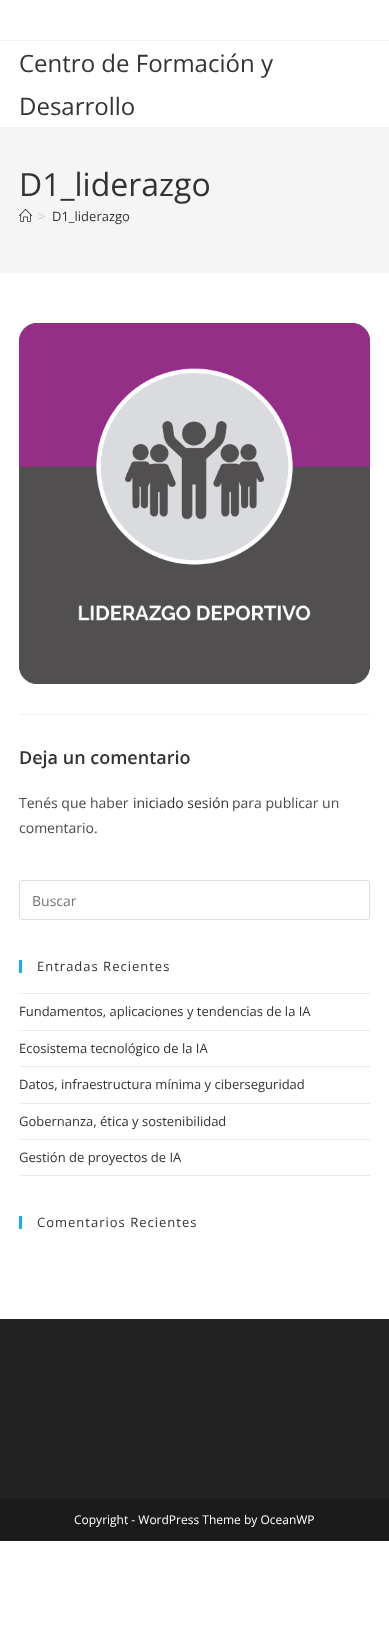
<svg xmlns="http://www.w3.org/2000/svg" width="389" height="1645">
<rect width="100%" height="100%" fill="#fff"/>
<rect y="40" width="389" height="1" fill="#f1f1f1"/>
<rect y="127" width="389" height="1" fill="#f1f1f1"/>
<text x="19" y="72" style="font-family:Open Sans;font-size:24px;fill:#333">Centro de Formación y</text>
<text x="19" y="115" style="font-family:Open Sans;font-size:24px;fill:#333">Desarrollo</text>
<rect y="128" width="389" height="145" fill="#f5f5f5"/>
<text x="19" y="196" style="font-family:Open Sans;font-size:32px;fill:#333">D1_liderazgo</text>
<image x="19" y="208" width="13" height="14" href="media/1.png"/>
<text x="38" y="221" style="font-family:Open Sans;font-size:13px;fill:#c6c6c6">&gt;</text>
<text x="52" y="221" style="font-family:Open Sans;font-size:13px;fill:#333">D1_liderazgo</text>
<image x="19" y="323" width="351" height="361" href="media/2.png"/>
<rect x="19" y="714" width="351" height="1" fill="#f1f1f1"/>
<text x="19" y="764" style="font-family:Open Sans;font-size:18px;font-weight:600;fill:#333">Deja un comentario</text>
<text x="19" y="808" style="font-family:Open Sans;font-size:14px;fill:#4a4a4a">Tenés que haber</text>
<text x="133" y="808" style="font-family:Open Sans;font-size:14px;fill:#333">iniciado sesión</text>
<text x="232" y="808" style="font-family:Open Sans;font-size:14px;fill:#4a4a4a">para publicar un</text>
<text x="19" y="833" style="font-family:Open Sans;font-size:14px;fill:#4a4a4a">comentario.</text>
<rect x="19.5" y="880.5" width="350" height="39" rx="2.5" fill="none" stroke="#ddd"/>
<text x="32" y="906" style="font-family:Open Sans;font-size:14px;fill:#757575">Buscar</text>
<rect x="19" y="960" width="3" height="13" fill="#13aff0"/>
<text x="37" y="971" style="font-family:Open Sans;font-size:13px;letter-spacing:1px;fill:#333">Entradas Recientes</text>
<rect x="19" y="993" width="351" height="1" fill="#e9e9e9"/>
<rect x="19" y="1030" width="351" height="1" fill="#e9e9e9"/>
<text x="19" y="1016" style="font-family:Open Sans;font-size:13px;fill:#333">Fundamentos, aplicaciones y tendencias de la IA</text>
<rect x="19" y="1066" width="351" height="1" fill="#e9e9e9"/>
<text x="19" y="1053" style="font-family:Open Sans;font-size:13px;fill:#333">Ecosistema tecnológico de la IA</text>
<rect x="19" y="1103" width="351" height="1" fill="#e9e9e9"/>
<text x="19" y="1089" style="font-family:Open Sans;font-size:13px;fill:#333">Datos, infraestructura mínima y ciberseguridad</text>
<rect x="19" y="1139" width="351" height="1" fill="#e9e9e9"/>
<text x="19" y="1126" style="font-family:Open Sans;font-size:13px;fill:#333">Gobernanza, ética y sostenibilidad</text>
<rect x="19" y="1175" width="351" height="1" fill="#e9e9e9"/>
<text x="19" y="1162" style="font-family:Open Sans;font-size:13px;fill:#333">Gestión de proyectos de IA</text>
<rect x="19" y="1216" width="3" height="13" fill="#13aff0"/>
<text x="37" y="1227" style="font-family:Open Sans;font-size:13px;letter-spacing:1px;fill:#333">Comentarios Recientes</text>
<rect y="1319" width="389" height="180" fill="#222"/>
<rect y="1499" width="389" height="42" fill="#1b1b1b"/>
<text x="74" y="1524" style="font-family:Open Sans;font-size:12px;fill:#fff">Copyright - WordPress Theme by OceanWP</text>
</svg>
